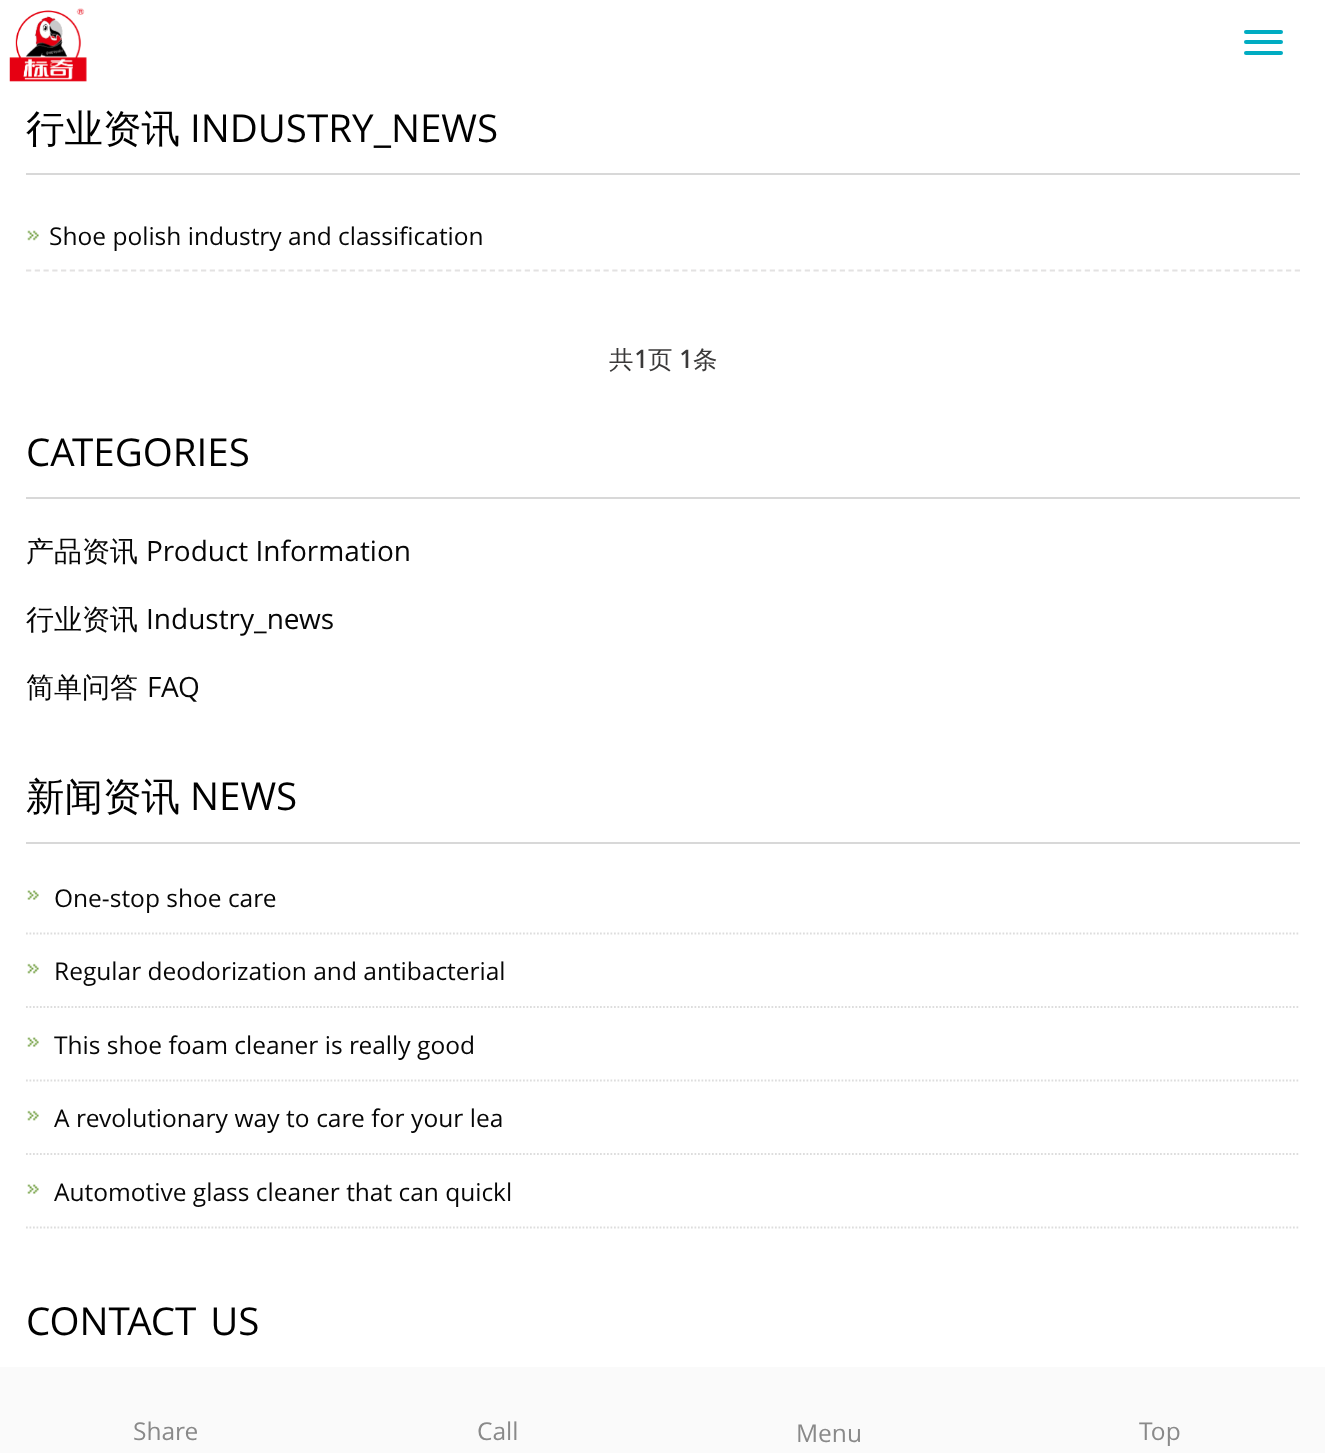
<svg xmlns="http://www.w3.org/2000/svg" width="1325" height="1453">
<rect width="100%" height="100%" fill="#fff"/>
<image x="9" y="8" width="78" height="74" href="media/1.png"/>
<rect x="1244" y="30" width="39" height="4" rx="2" fill="#00acc2"/>
<rect x="1244" y="40" width="39" height="4" rx="2" fill="#00acc2"/>
<rect x="1244" y="51" width="39" height="4" rx="2" fill="#00acc2"/>
<rect x="26" y="173" width="1274" height="2" fill="#d8d8d8"/>
<text x="26" y="142" style="font-family:WenQuanYi Zen Hei;font-size:38.5px;font-weight:500;fill:#000">行业资讯</text>
<text x="190" y="142" style="font-family:Open Sans;font-size:38.5px;fill:#000">INDUSTRY_NEWS</text>
<image x="27" y="230" width="12" height="11" href="media/2.png"/>
<path d="M26 270.5h1274" fill="none" stroke="#e3e2e2" stroke-width="1.8" stroke-dasharray="5.25 3.5"/>
<text x="49" y="245" style="font-family:Open Sans;font-size:24.5px;fill:#060606">Shoe polish industry and classification</text>
<text x="609" y="368" style="font-family:WenQuanYi Zen Hei;font-size:24.5px;font-weight:500;fill:#3a3939">共</text>
<text x="634" y="368" style="font-family:Open Sans;font-size:24.5px;font-weight:bold;fill:#3a3939">1</text>
<text x="648" y="368" style="font-family:WenQuanYi Zen Hei;font-size:24.5px;font-weight:500;fill:#3a3939">页</text>
<text x="679" y="368" style="font-family:Open Sans;font-size:24.5px;font-weight:bold;fill:#3a3939">1</text>
<text x="693" y="368" style="font-family:WenQuanYi Zen Hei;font-size:24.5px;font-weight:500;fill:#3a3939">条</text>
<rect x="26" y="497" width="1274" height="2" fill="#d8d8d8"/>
<text x="26" y="466" style="font-family:Open Sans;font-size:38.5px;fill:#000">CATEGORIES</text>
<text x="26" y="561" style="font-family:WenQuanYi Zen Hei;font-size:28px;font-weight:500;fill:#060606">产品资讯</text>
<text x="146" y="561" style="font-family:Open Sans;font-size:28px;fill:#060606">Product Information</text>
<text x="26" y="629" style="font-family:WenQuanYi Zen Hei;font-size:28px;font-weight:500;fill:#060606">行业资讯</text>
<text x="146" y="629" style="font-family:Open Sans;font-size:28px;fill:#060606">Industry_news</text>
<text x="26" y="697" style="font-family:WenQuanYi Zen Hei;font-size:28px;font-weight:500;fill:#060606">简单问答</text>
<text x="147" y="697" style="font-family:Open Sans;font-size:28px;fill:#060606">FAQ</text>
<rect x="26" y="842" width="1274" height="2" fill="#d8d8d8"/>
<text x="26" y="810" style="font-family:WenQuanYi Zen Hei;font-size:38.5px;font-weight:500;fill:#000">新闻资讯</text>
<text x="190" y="810" style="font-family:Open Sans;font-size:38.5px;fill:#000">NEWS</text>
<image x="27" y="890" width="12" height="10" href="media/3.png"/>
<path d="M26 933.5h1274" fill="none" stroke="#ddd" stroke-width="1.8" stroke-dasharray="1.75 1.75"/>
<text x="54" y="907" style="font-family:Open Sans;font-size:24.5px;fill:#060606">One-stop shoe care</text>
<image x="27" y="963" width="12" height="11" href="media/4.png"/>
<path d="M26 1007h1274" fill="none" stroke="#ddd" stroke-width="1.8" stroke-dasharray="1.75 1.75"/>
<text x="54" y="980" style="font-family:Open Sans;font-size:24.5px;fill:#060606">Regular deodorization and antibacterial</text>
<image x="27" y="1037" width="12" height="10" href="media/3.png"/>
<path d="M26 1080.5h1274" fill="none" stroke="#ddd" stroke-width="1.8" stroke-dasharray="1.75 1.75"/>
<text x="54" y="1054" style="font-family:Open Sans;font-size:24.5px;fill:#060606">This shoe foam cleaner is really good</text>
<image x="27" y="1110" width="12" height="11" href="media/4.png"/>
<path d="M26 1154h1274" fill="none" stroke="#ddd" stroke-width="1.8" stroke-dasharray="1.75 1.75"/>
<text x="54" y="1127" word-spacing="0.25" style="font-family:Open Sans;font-size:24.5px;fill:#060606">A revolutionary way to care for your lea</text>
<image x="27" y="1184" width="12" height="10" href="media/3.png"/>
<path d="M26 1227.5h1274" fill="none" stroke="#ddd" stroke-width="1.8" stroke-dasharray="1.75 1.75"/>
<text x="54" y="1201" style="font-family:Open Sans;font-size:24.5px;fill:#060606">Automotive glass cleaner that can quickl</text>
<text x="26" y="1335" word-spacing="4" style="font-family:Open Sans;font-size:38.5px;fill:#000">CONTACT US</text>
<rect y="1367" width="1325" height="86" fill="#fafafa"/>
<text x="133" y="1440" style="font-family:Open Sans;font-size:24.5px;fill:#898989">Share</text>
<text x="477" y="1440" style="font-family:Open Sans;font-size:24.5px;fill:#898989">Call</text>
<text x="796" y="1442" style="font-family:Open Sans;font-size:24.5px;fill:#898989">Menu</text>
<text x="1139" y="1440" style="font-family:Open Sans;font-size:24.5px;fill:#898989">Top</text>
</svg>
